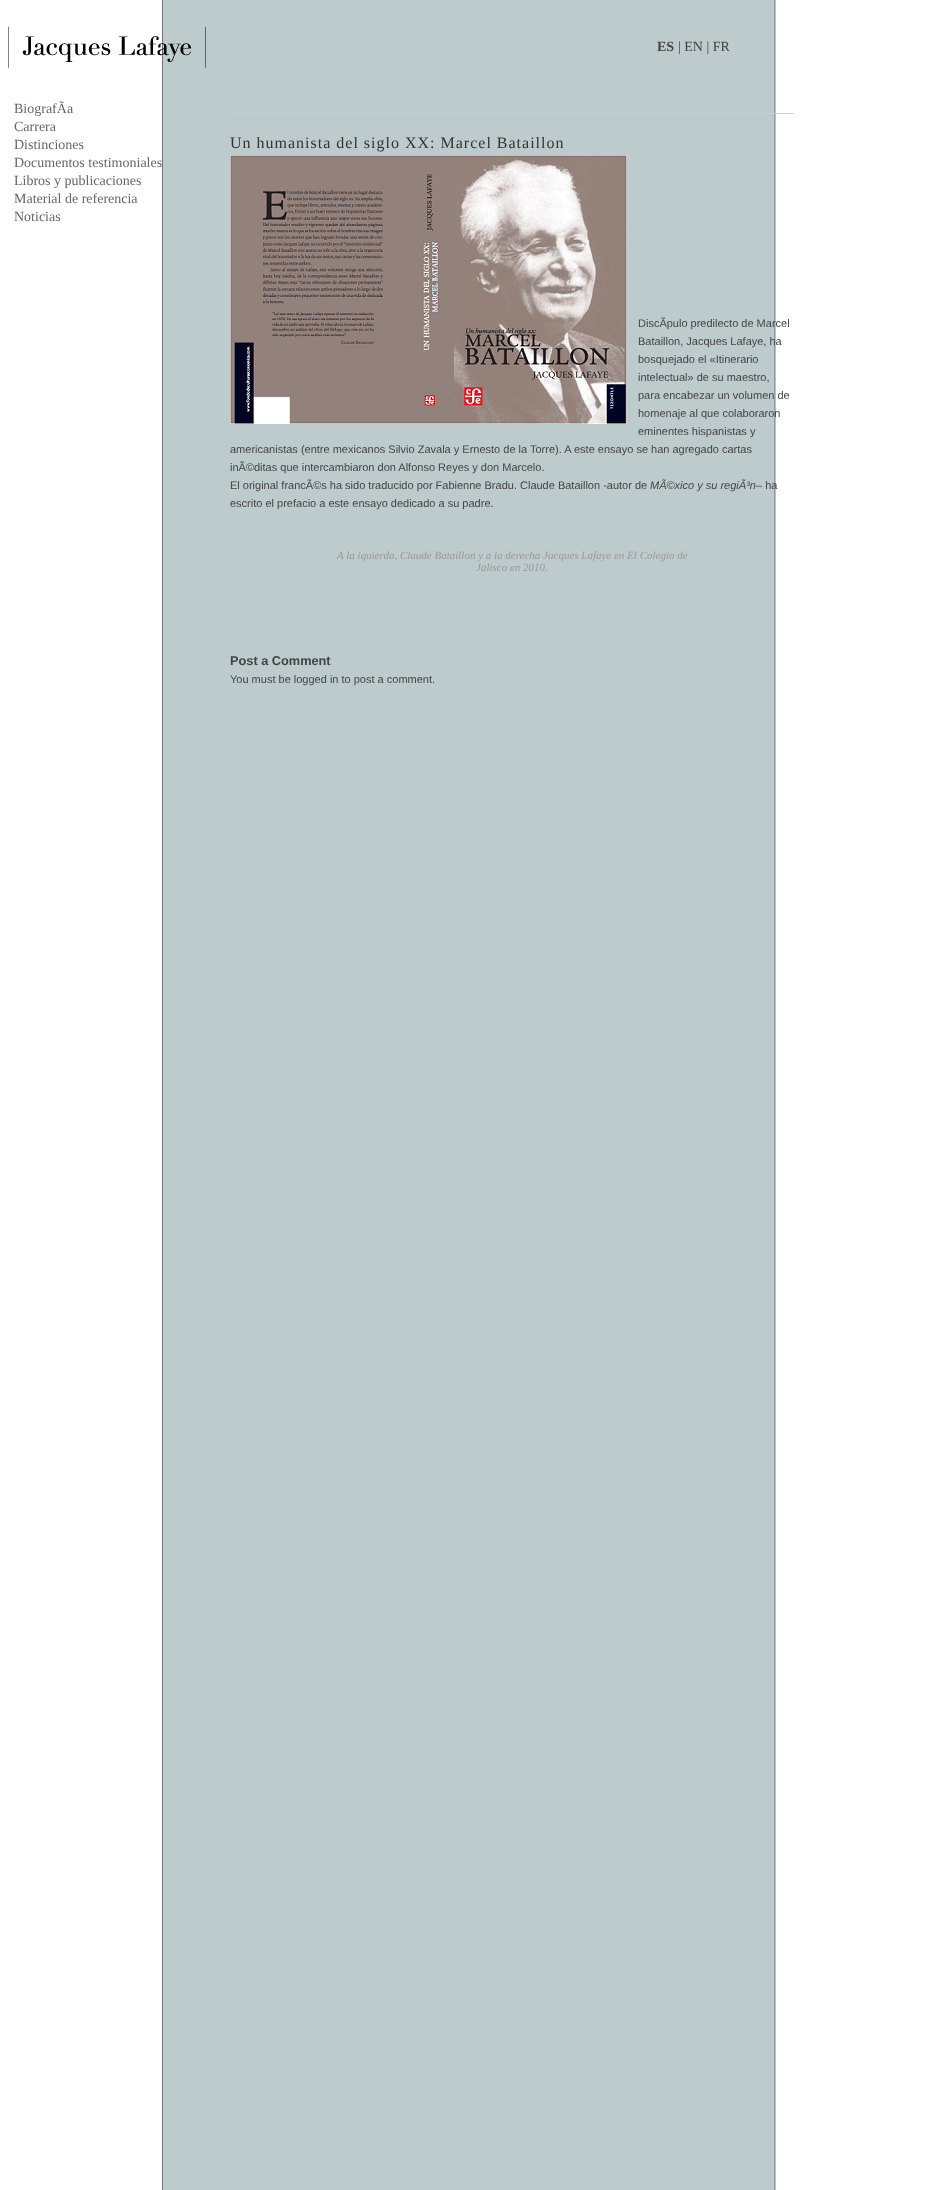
<svg xmlns="http://www.w3.org/2000/svg" width="937" height="2190">
<rect width="100%" height="100%" fill="#fff"/>
<image x="162" y="0" width="614" height="2190" href="media/1.png"/>
<image x="8" y="26" width="198" height="42" href="media/2.png"/>
<text x="657" y="51" style="font-family:Liberation Serif;font-size:14px;font-weight:bold;fill:#444">ES</text>
<text x="678" y="51" style="font-family:Liberation Serif;font-size:14px;fill:#444">| EN | FR</text>
<text x="14" y="113" style="font-family:Liberation Serif;font-size:14px;fill:#666">BiografÃa</text>
<text x="14" y="131" style="font-family:Liberation Serif;font-size:14px;fill:#666">Carrera</text>
<text x="14" y="149" style="font-family:Liberation Serif;font-size:14px;fill:#666">Distinciones</text>
<text x="14" y="167" style="font-family:Liberation Serif;font-size:14px;fill:#666">Documentos testimoniales</text>
<text x="14" y="185" style="font-family:Liberation Serif;font-size:14px;fill:#666">Libros y publicaciones</text>
<text x="14" y="203" style="font-family:Liberation Serif;font-size:14px;fill:#666">Material de referencia</text>
<text x="14" y="221" style="font-family:Liberation Serif;font-size:14px;fill:#666">Noticias</text>
<rect x="230" y="113" width="564" height="1" fill="#ccc"/>
<text x="230" y="148" style="font-family:Liberation Serif;font-size:16px;letter-spacing:1px;fill:#333">Un humanista del siglo XX: Marcel Bataillon</text>
<image x="230" y="155" width="397" height="269" href="media/3.png"/>
<text x="638" y="327" style="font-family:Liberation Sans;font-size:11px;fill:#444">DiscÃpulo predilecto de Marcel</text>
<text x="638" y="345" style="font-family:Liberation Sans;font-size:11px;fill:#444">Bataillon, Jacques Lafaye, ha</text>
<text x="638" y="363" style="font-family:Liberation Sans;font-size:11px;fill:#444">bosquejado el «Itinerario</text>
<text x="638" y="381" style="font-family:Liberation Sans;font-size:11px;fill:#444">intelectual» de su maestro,</text>
<text x="638" y="399" style="font-family:Liberation Sans;font-size:11px;fill:#444">para encabezar un volumen de</text>
<text x="638" y="417" style="font-family:Liberation Sans;font-size:11px;fill:#444">homenaje al que colaboraron</text>
<text x="638" y="435" style="font-family:Liberation Sans;font-size:11px;fill:#444">eminentes hispanistas y</text>
<text x="230" y="453" style="font-family:Liberation Sans;font-size:11px;fill:#444">americanistas (entre mexicanos Silvio Zavala y Ernesto de la Torre). A este ensayo se han agregado cartas</text>
<text x="230" y="471" style="font-family:Liberation Sans;font-size:11px;fill:#444">inÃ©ditas que intercambiaron don Alfonso Reyes y don Marcelo.</text>
<text x="230" y="489" style="font-family:Liberation Sans;font-size:11px;fill:#444">El original francÃ©s ha sido traducido por Fabienne Bradu. Claude Bataillon -autor de</text>
<text x="650" y="489" style="font-family:Liberation Sans;font-size:11px;font-style:italic;fill:#444">MÃ©xico y su regiÃ³n</text>
<text x="756" y="489" style="font-family:Liberation Sans;font-size:11px;fill:#444">– ha</text>
<text x="230" y="507" style="font-family:Liberation Sans;font-size:11px;fill:#444">escrito el prefacio a este ensayo dedicado a su padre.</text>
<text x="337" y="559" style="font-family:Liberation Serif;font-size:11px;font-style:italic;fill:#999">A la iquierda, Claude Bataillon y a la derecha Jacques Lafaye en El Colegio de</text>
<text x="476" y="571" style="font-family:Liberation Serif;font-size:11px;font-style:italic;fill:#999">Jalisco en 2010.</text>
<text x="230" y="665" style="font-family:Liberation Sans;font-size:12.75px;font-weight:bold;fill:#444">Post a Comment</text>
<text x="230" y="683" style="font-family:Liberation Sans;font-size:11px;fill:#444">You must be logged in to post a comment.</text>
</svg>
